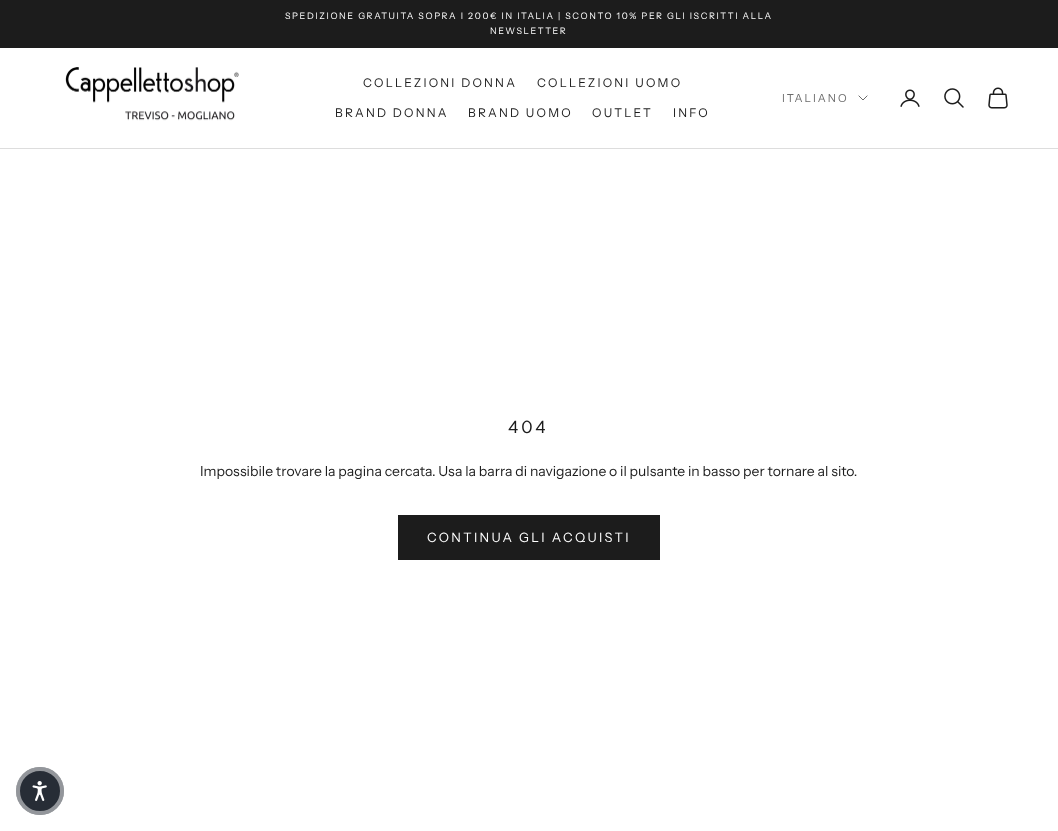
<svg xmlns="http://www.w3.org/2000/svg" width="1058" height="831">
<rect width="100%" height="100%" fill="#fff"/>
<rect width="1058" height="48" fill="#1c1c1c"/>
<text x="285" y="19" style="font-family:Instrument Sans;font-size:9px;letter-spacing:1.62px;fill:#fff">SPEDIZIONE GRATUITA SOPRA I 200€ IN ITALIA | SCONTO 10% PER GLI ISCRITTI ALLA</text>
<text x="490" y="34" style="font-family:Instrument Sans;font-size:9px;letter-spacing:1.62px;fill:#fff">NEWSLETTER</text>
<rect y="148" width="1058" height="1" fill="#ddd"/>
<image x="65" y="67" width="174" height="54" href="media/1.png"/>
<text x="363" y="87" style="font-family:Instrument Sans;font-size:12px;letter-spacing:2.2px;fill:#1c1c1c">COLLEZIONI DONNA</text>
<text x="537" y="87" style="font-family:Instrument Sans;font-size:12px;letter-spacing:2.2px;fill:#1c1c1c">COLLEZIONI UOMO</text>
<text x="335" y="117" style="font-family:Instrument Sans;font-size:12px;letter-spacing:2.2px;fill:#1c1c1c">BRAND DONNA</text>
<text x="468" y="117" style="font-family:Instrument Sans;font-size:12px;letter-spacing:2.2px;fill:#1c1c1c">BRAND UOMO</text>
<text x="592" y="117" style="font-family:Instrument Sans;font-size:12px;letter-spacing:2.2px;fill:#1c1c1c">OUTLET</text>
<text x="673" y="117" style="font-family:Instrument Sans;font-size:12px;letter-spacing:2.2px;fill:#1c1c1c">INFO</text>
<text x="782" y="102" style="font-family:Instrument Sans;font-size:11px;letter-spacing:2px;fill:#6b6b6b">ITALIANO</text>
<path d="M859 96l4 4l4-4" fill="none" stroke="#6b6b6b" stroke-linecap="square"/>
<image x="900" y="89" width="20" height="18" href="media/2.png"/>
<image x="944" y="88" width="20" height="20" href="media/3.png"/>
<image x="988" y="87" width="20" height="22" href="media/4.png"/>
<text x="508" y="433" style="font-family:Instrument Sans;font-size:17px;letter-spacing:3px;fill:#1c1c1c">404</text>
<text x="200" y="476" style="font-family:Instrument Sans;font-size:14px;fill:#1c1c1c">Impossibile trovare la pagina cercata. Usa la barra di navigazione o il pulsante in basso per tornare al sito.</text>
<rect x="398.5" y="515.5" width="261" height="44" fill="#1c1c1c" stroke="#1c1c1c"/>
<text x="427" y="542" style="font-family:Instrument Sans;font-size:13px;letter-spacing:2.3px;fill:#fff">CONTINUA GLI ACQUISTI</text>
<circle cx="40" cy="791" r="24" fill="#272d36"/>
<circle cx="40" cy="791" r="22" fill="none" stroke="#ffffff80" stroke-width="4"/>
<image x="32" y="781" width="15" height="20" href="media/5.png"/>
</svg>
